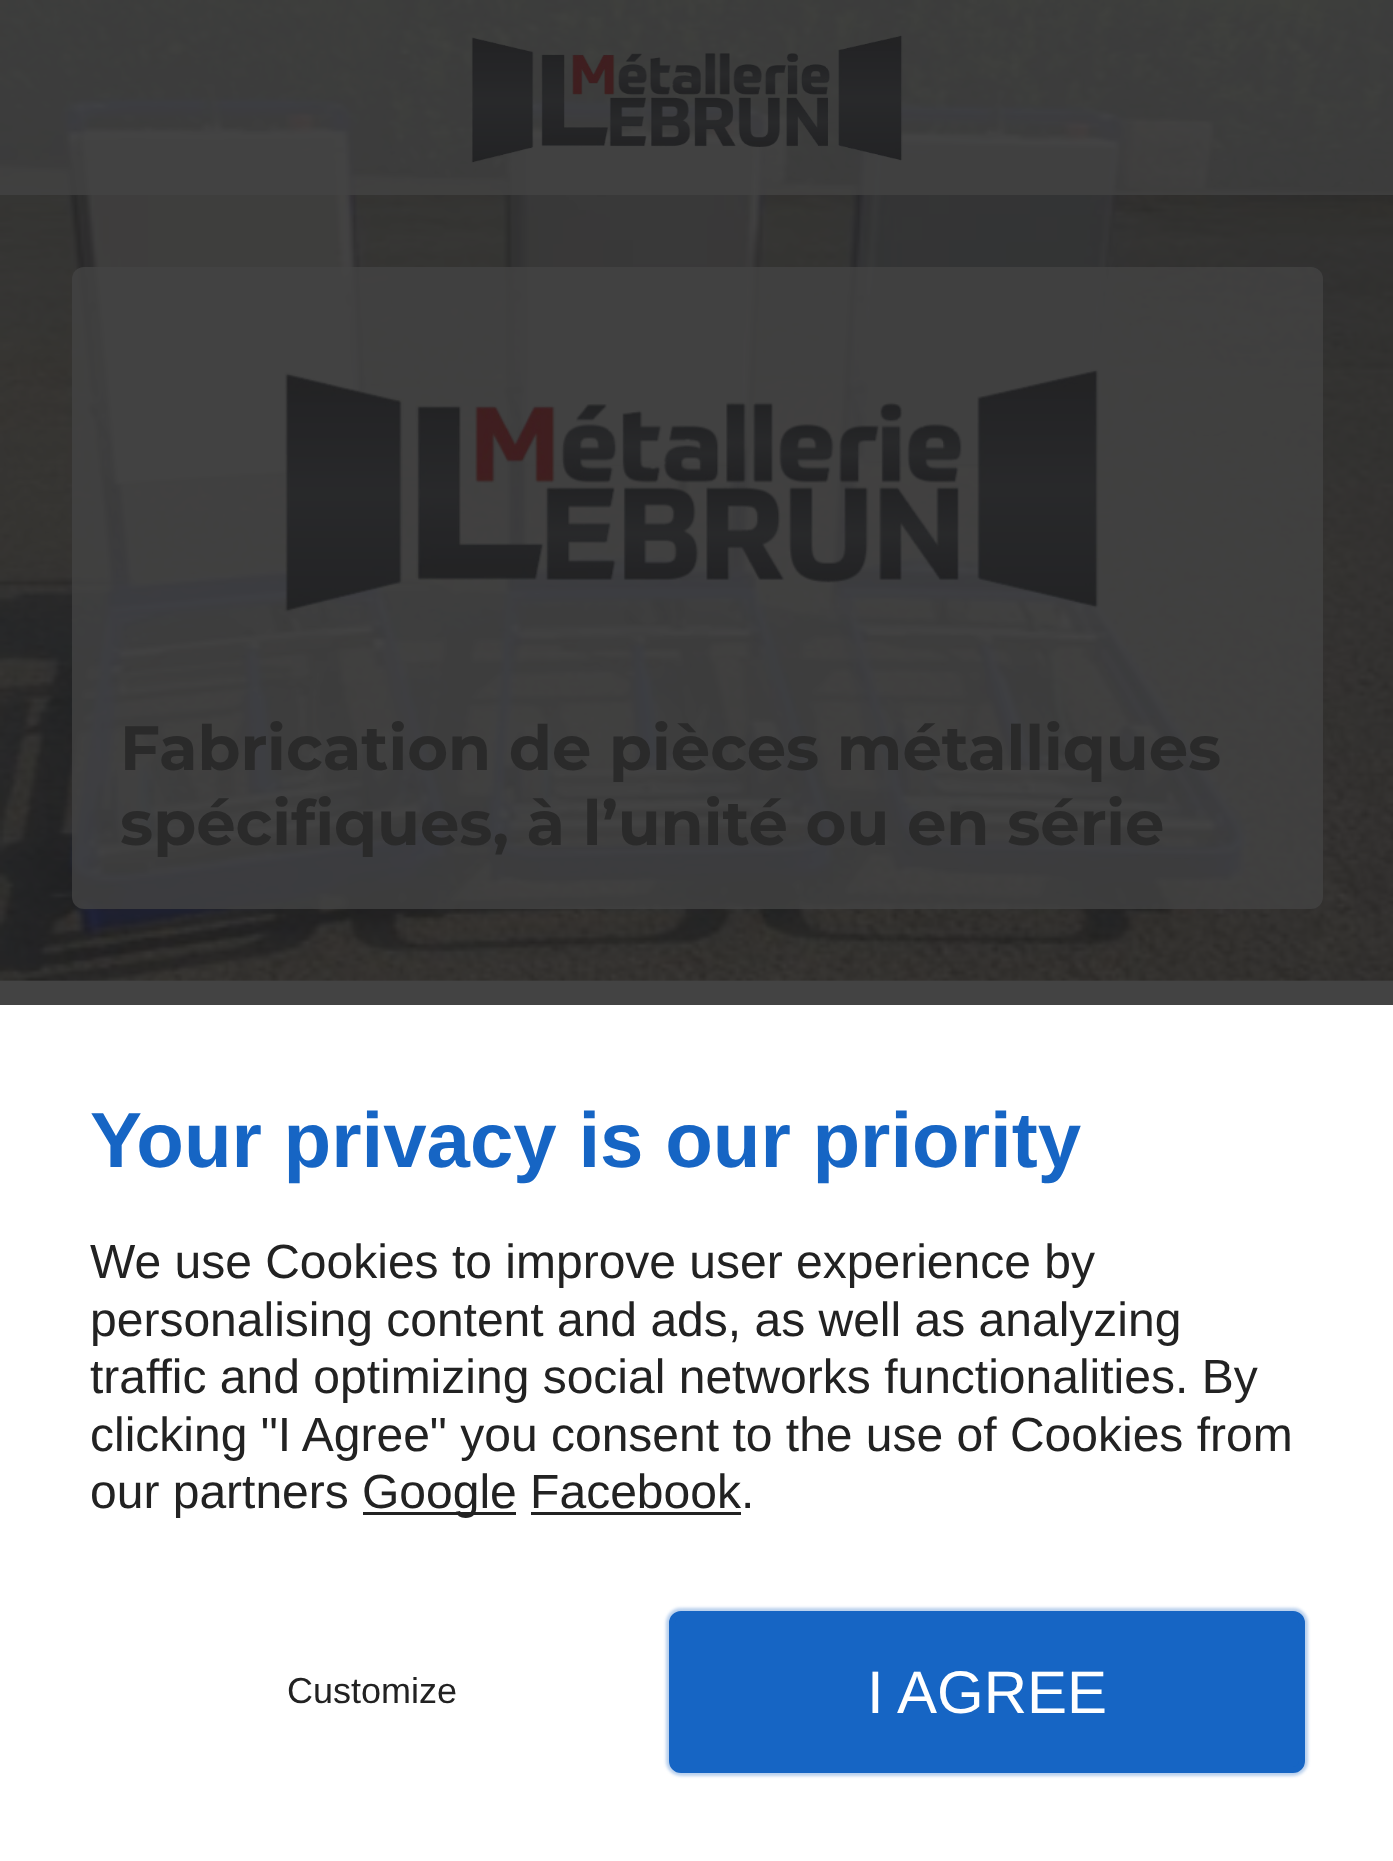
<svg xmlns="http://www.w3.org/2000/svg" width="1393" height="1861">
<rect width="100%" height="100%" fill="#434343"/>
<image x="0" y="0" width="1393" height="981" href="media/1.png"/>
<rect width="1393" height="195" fill="#434343cc"/>
<image x="471" y="35" width="432" height="128" href="media/2.png"/>
<rect x="72" y="267" width="1251" height="642" rx="12" fill="#434343cc"/>
<image x="284" y="369" width="815" height="243" href="media/3.png"/>
<text x="120" y="770" style="font-family:Montserrat;font-size:62.4px;font-weight:bold;fill:#2a2a2a">Fabrication de pièces métalliques</text>
<text x="120" y="845" style="font-family:Montserrat;font-size:62.4px;font-weight:bold;fill:#2a2a2a">spécifiques, à l’unité ou en série</text>
<rect y="1005" width="1393" height="856" fill="#fff"/>
<text x="90" y="1167" style="font-family:Liberation Sans;font-size:78px;font-weight:bold;fill:#1665c4">Your privacy is our priority</text>
<text x="90" y="1278" style="font-family:Liberation Sans;font-size:48px;fill:#222">We use Cookies to improve user experience by</text>
<text x="90" y="1336" style="font-family:Liberation Sans;font-size:48px;fill:#222">personalising content and ads, as well as analyzing</text>
<text x="90" y="1393" style="font-family:Liberation Sans;font-size:48px;fill:#222">traffic and optimizing social networks functionalities. By</text>
<text x="90" y="1451" style="font-family:Liberation Sans;font-size:48px;fill:#222">clicking "I Agree" you consent to the use of Cookies from</text>
<text x="90" y="1508" style="font-family:Liberation Sans;font-size:48px;fill:#222">our partners</text>
<rect x="363" y="1512" width="153" height="3" fill="#222"/>
<text x="362" y="1508" style="font-family:Liberation Sans;font-size:48px;fill:#222">Google Facebook.</text>
<rect x="531" y="1512" width="210" height="3" fill="#222"/>
<text x="287" y="1703" style="font-family:Liberation Sans;font-size:36px;fill:#222">Customize</text>
<rect x="666" y="1608" width="642" height="168" rx="15" fill="#1665c44d" filter="blur(1.5px)"/>
<rect x="672" y="1614" width="630" height="156" rx="9" fill="#1665c4" stroke="#1665c4" stroke-width="6"/>
<text x="867" y="1713" style="font-family:Liberation Sans;font-size:60px;fill:#fff">I AGREE</text>
</svg>
